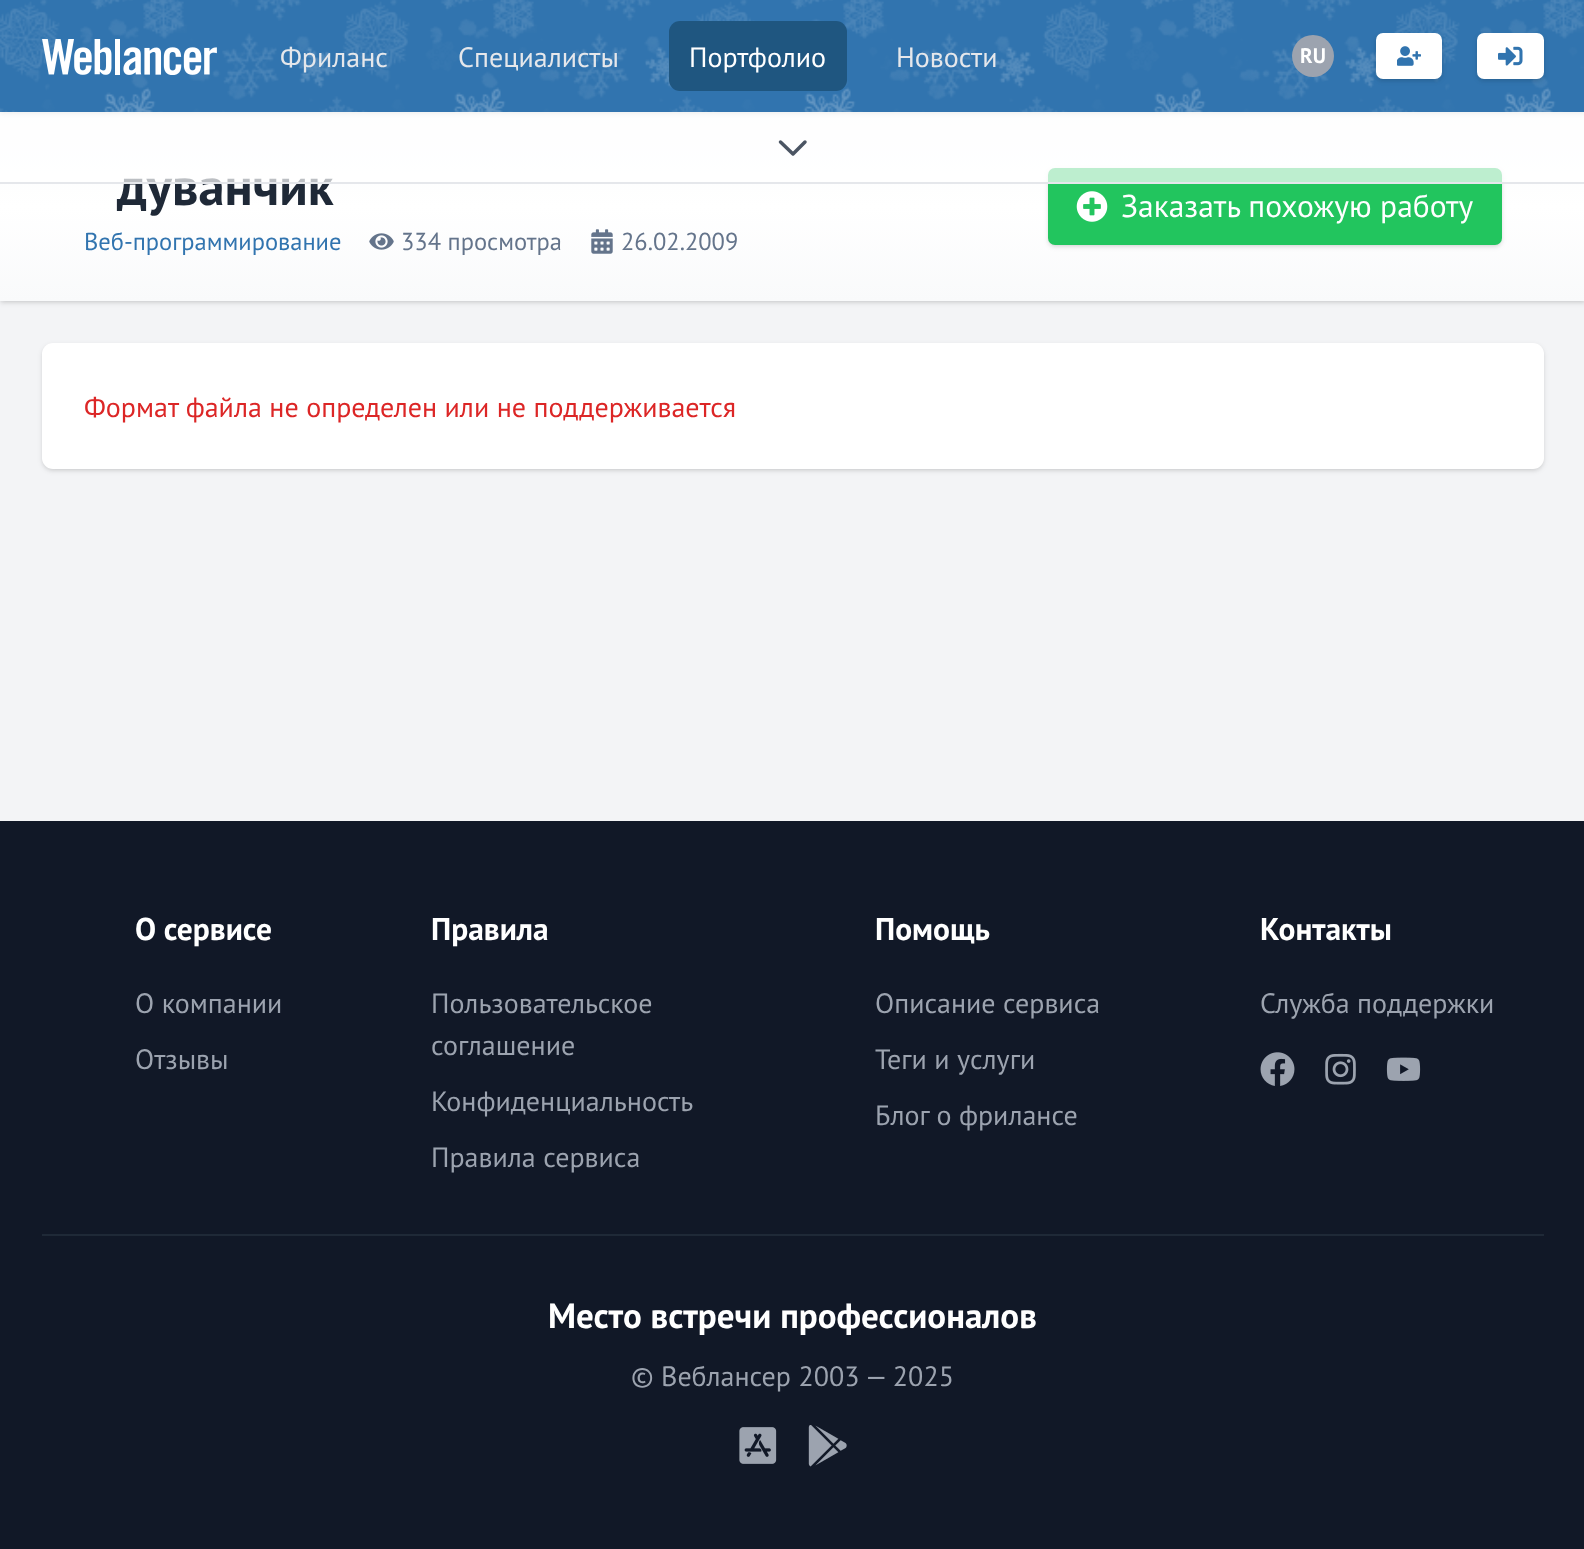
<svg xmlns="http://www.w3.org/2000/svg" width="1584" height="1549">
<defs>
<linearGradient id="g1" gradientUnits="userSpaceOnUse" x1="793" y1="112" x2="793" y2="301"><stop offset="0" stop-color="#f9fafb"/><stop offset="0.5" stop-color="#fff"/><stop offset="1" stop-color="#f9fafb"/></linearGradient>
</defs>
<rect width="100%" height="100%" fill="#f3f4f6"/>
<rect x="2" y="116" width="1582" height="185" fill="#0000001a" filter="blur(2px)"/>
<rect y="114" width="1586" height="189" fill="#0000001a" filter="blur(2.5px)"/>
<rect y="112" width="1584" height="189" fill="url(#g1)"/>
<text x="117" y="205" style="font-family:PT Sans;font-size:52.5px;font-weight:bold;fill:#1f2937">дуванчик</text>
<rect x="1050" y="172" width="450" height="73" rx="5" fill="#0000001a" filter="blur(2px)"/>
<rect x="1048" y="170" width="454" height="77" rx="7" fill="#0000001a" filter="blur(2.5px)"/>
<rect x="1048" y="168" width="454" height="77" rx="7" fill="#22c55e"/>
<rect y="112" width="1584" height="70" fill="#ffffffb3"/>
<rect y="2" width="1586" height="112" fill="#0000000d" filter="blur(2px)"/>
<rect width="1584" height="112" fill="#3174af"/>
<image x="0" y="0" width="1584" height="112" href="media/1.png"/>
<image x="42" y="39" width="175" height="36" href="media/2.png"/>
<text x="280" y="67" style="font-family:PT Sans;font-size:28px;fill:#e5e7eb">Фриланс</text>
<text x="458" y="67" style="font-family:PT Sans;font-size:28px;fill:#e5e7eb">Специалисты</text>
<rect x="669" y="21" width="178" height="70" rx="11" fill="#1f5680"/>
<text x="689" y="67" style="font-family:PT Sans;font-size:28px;fill:#fff">Портфолио</text>
<text x="896" y="67" style="font-family:PT Sans;font-size:28px;fill:#e5e7eb">Новости</text>
<circle cx="1313" cy="56" r="21" fill="#9ca3af"/>
<text x="1300" y="63" style="font-family:PT Sans;font-size:21px;font-weight:bold;fill:#fff">RU</text>
<rect x="1377" y="37" width="63" height="42" rx="5" fill="#0000001a" filter="blur(2px)"/>
<rect x="1376" y="35" width="66" height="46" rx="7" fill="#0000001a" filter="blur(2.5px)"/>
<rect x="1376" y="33" width="66" height="46" rx="7" fill="#fff"/>
<image x="1397" y="46" width="24" height="20" href="media/3.png"/>
<rect x="1479" y="37" width="63" height="42" rx="5" fill="#0000001a" filter="blur(2px)"/>
<rect x="1477" y="35" width="67" height="46" rx="7" fill="#0000001a" filter="blur(2.5px)"/>
<rect x="1477" y="33" width="67" height="46" rx="7" fill="#fff"/>
<image x="1498" y="46" width="25" height="20" href="media/4.png"/>
<text x="84" y="250" style="font-family:PT Sans;font-size:24.5px;fill:#3174af">Веб-программирование</text>
<image x="369" y="233" width="25" height="17" href="media/5.png"/>
<text x="401" y="250" style="font-family:PT Sans;font-size:24.5px;fill:#64748b">334 просмотра</text>
<image x="591" y="229" width="22" height="25" href="media/6.png"/>
<text x="621" y="250" style="font-family:PT Sans;font-size:24.5px;fill:#64748b">26.02.2009</text>
<image x="1076" y="191" width="32" height="31" href="media/7.png"/>
<text x="1121" y="217" style="font-family:PT Sans;font-size:31.5px;fill:#fff">Заказать похожую работу</text>
<rect y="182" width="1584" height="2" fill="#e5e7eb"/>
<path d="M805 142l-12 12l-12.5-12" fill="none" stroke="#4b5563" stroke-width="3.5" stroke-linecap="round" stroke-linejoin="round"/>
<rect x="44" y="347" width="1498" height="122" rx="9" fill="#0000001a" filter="blur(2px)"/>
<rect x="42" y="345" width="1502" height="126" rx="11" fill="#0000001a" filter="blur(2.5px)"/>
<rect x="42" y="343" width="1502" height="126" rx="11" fill="#fff"/>
<text x="84" y="417" style="font-family:PT Sans;font-size:28px;fill:#dc2626">Формат файла не определен или не поддерживается</text>
<rect y="821" width="1584" height="728" fill="#111827"/>
<text x="135" y="940" style="font-family:PT Sans;font-size:31.5px;font-weight:bold;fill:#fff">О сервисе</text>
<text x="135" y="1013" style="font-family:PT Sans;font-size:28px;fill:#9ca3af">О компании</text>
<text x="135" y="1069" style="font-family:PT Sans;font-size:28px;fill:#9ca3af">Отзывы</text>
<text x="431" y="940" style="font-family:PT Sans;font-size:31.5px;font-weight:bold;fill:#fff">Правила</text>
<text x="431" y="1013" style="font-family:PT Sans;font-size:28px;fill:#9ca3af">Пользовательское</text>
<text x="431" y="1055" style="font-family:PT Sans;font-size:28px;fill:#9ca3af">соглашение</text>
<text x="431" y="1111" style="font-family:PT Sans;font-size:28px;fill:#9ca3af">Конфиденциальность</text>
<text x="431" y="1167" style="font-family:PT Sans;font-size:28px;fill:#9ca3af">Правила сервиса</text>
<text x="875" y="940" style="font-family:PT Sans;font-size:31.5px;font-weight:bold;fill:#fff">Помощь</text>
<text x="875" y="1013" style="font-family:PT Sans;font-size:28px;fill:#9ca3af">Описание сервиса</text>
<text x="875" y="1069" style="font-family:PT Sans;font-size:28px;fill:#9ca3af">Теги и услуги</text>
<text x="875" y="1125" style="font-family:PT Sans;font-size:28px;fill:#9ca3af">Блог о фрилансе</text>
<text x="1260" y="940" style="font-family:PT Sans;font-size:31.5px;font-weight:bold;fill:#fff">Контакты</text>
<text x="1260" y="1013" style="font-family:PT Sans;font-size:28px;fill:#9ca3af">Служба поддержки</text>
<image x="1260" y="1052" width="35" height="34" href="media/8.png"/>
<image x="1325" y="1053" width="31" height="32" href="media/9.png"/>
<image x="1386" y="1057" width="35" height="24" href="media/10.png"/>
<rect x="42" y="1234" width="1502" height="2" fill="#1f2937"/>
<text x="548" y="1328" style="font-family:PT Sans;font-size:35px;font-weight:bold;fill:#fff">Место встречи профессионалов</text>
<text x="631" y="1386" style="font-family:PT Sans;font-size:28px;fill:#9ca3af">© Веблансер 2003 — 2025</text>
<image x="739" y="1427" width="38" height="37" href="media/11.png"/>
<image x="808" y="1425" width="39" height="42" href="media/12.png"/>
</svg>
